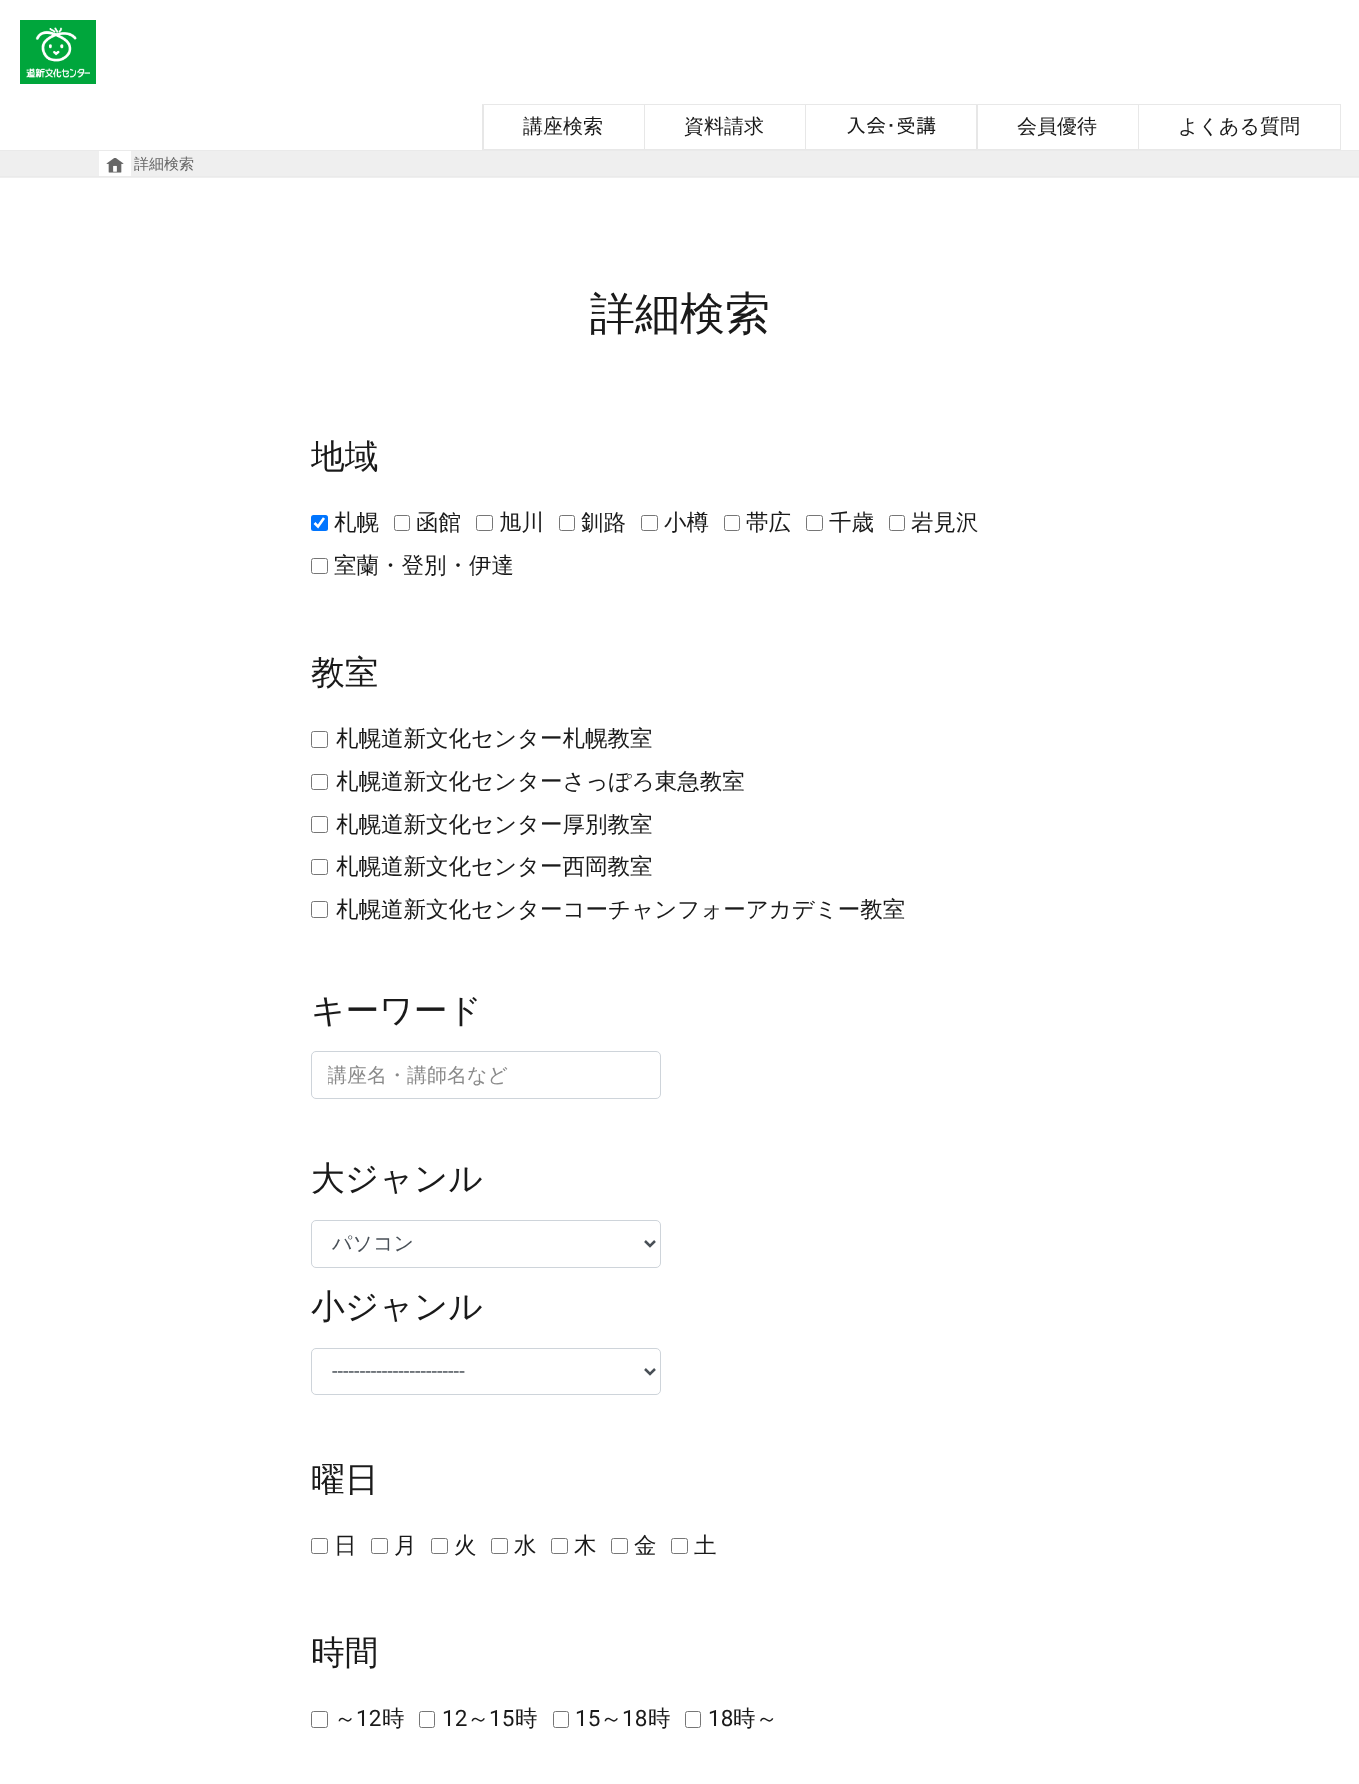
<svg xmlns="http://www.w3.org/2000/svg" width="1359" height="1784">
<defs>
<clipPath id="clip1"><rect x="328" y="1064" width="317" height="26"/></clipPath>
</defs>
<rect width="100%" height="100%" fill="#fff"/>
<rect x="20" y="20" width="76" height="64" fill="#00a63c"/>
<image x="26" y="27" width="64" height="51" href="media/1.png"/>
<path d="M482 104h162v1h-160z" fill="#e8e8e8"/>
<path d="M644 150h-162l2-1h160z" fill="#e8e8e8"/>
<path d="M482 150v-46l2 1v44z" fill="#b1b1b14d"/>
<text x="523" y="133" style="font-family:WenQuanYi Zen Hei;font-size:20px;font-weight:500;fill:#1a1a1a">講座検索</text>
<path d="M644 104h161v1h-160z" fill="#e8e8e8"/>
<path d="M805 150h-161l1-1h160z" fill="#e8e8e8"/>
<path d="M644 150v-46l1 1v44z" fill="#b1b1b14d"/>
<text x="684" y="133" style="font-family:WenQuanYi Zen Hei;font-size:20px;font-weight:500;fill:#1a1a1a">資料請求</text>
<path d="M805 104h171v1h-170z" fill="#e8e8e8"/>
<path d="M976 150h-171l1-1h170z" fill="#e8e8e8"/>
<path d="M805 150v-46l1 1v44z" fill="#b1b1b14d"/>
<text x="846" y="133" style="font-family:IPAPGothic;font-size:20px;fill:#1a1a1a">入会･受講</text>
<path d="M976 104h162v1h-160z" fill="#e8e8e8"/>
<path d="M1138 150h-162l2-1h160z" fill="#e8e8e8"/>
<path d="M976 150v-46l2 1v44z" fill="#b1b1b14d"/>
<text x="1017" y="133" style="font-family:WenQuanYi Zen Hei;font-size:20px;font-weight:500;fill:#1a1a1a">会員優待</text>
<rect x="1138.5" y="104.5" width="202" height="45" fill="none" stroke="#e8e8e8"/>
<text x="1178" y="133" style="font-family:WenQuanYi Zen Hei;font-size:20px;font-weight:500;fill:#1a1a1a">よくある質問</text>
<rect y="151" width="1359" height="27" fill="#efefef"/>
<rect y="150" width="1359" height="1" fill="#eaeaea"/>
<rect y="176" width="1359" height="1" fill="#eaeaea"/>
<rect x="99" y="151" width="32" height="25" fill="#fff"/>
<image x="106" y="158" width="18" height="15" href="media/2.png"/>
<text x="134" y="169" style="font-family:WenQuanYi Zen Hei;font-size:15px;font-weight:500;fill:#666">詳細検索</text>
<text x="590" y="329" style="font-family:WenQuanYi Zen Hei;font-size:45px;font-weight:500;fill:#1a1a1a">詳細検索</text>
<text x="311" y="468" style="font-family:WenQuanYi Zen Hei;font-size:33.75px;font-weight:500;fill:#1a1a1a">地域</text>
<rect x="311" y="515" width="17" height="16" rx="2.5" fill="#0075ff"/>
<path d="M314.5 523l3.5 3.5l6-8.5" fill="none" stroke="#fff" stroke-width="2.6"/>
<text x="334" y="530" style="font-family:WenQuanYi Zen Hei;font-size:22.5px;font-weight:500;fill:#1a1a1a">札幌</text>
<rect x="394.5" y="515.5" width="15" height="15" rx="2" fill="none" stroke="#767676"/>
<text x="416" y="530" style="font-family:WenQuanYi Zen Hei;font-size:22.5px;font-weight:500;fill:#1a1a1a">函館</text>
<rect x="476.5" y="515.5" width="16" height="15" rx="2" fill="none" stroke="#767676"/>
<text x="499" y="530" style="font-family:WenQuanYi Zen Hei;font-size:22.5px;font-weight:500;fill:#1a1a1a">旭川</text>
<rect x="559.5" y="515.5" width="15" height="15" rx="2" fill="none" stroke="#767676"/>
<text x="581" y="530" style="font-family:WenQuanYi Zen Hei;font-size:22.5px;font-weight:500;fill:#1a1a1a">釧路</text>
<rect x="641.5" y="515.5" width="16" height="15" rx="2" fill="none" stroke="#767676"/>
<text x="664" y="530" style="font-family:WenQuanYi Zen Hei;font-size:22.5px;font-weight:500;fill:#1a1a1a">小樽</text>
<rect x="724.5" y="515.5" width="15" height="15" rx="2" fill="none" stroke="#767676"/>
<text x="746" y="530" style="font-family:WenQuanYi Zen Hei;font-size:22.5px;font-weight:500;fill:#1a1a1a">帯広</text>
<rect x="806.5" y="515.5" width="16" height="15" rx="2" fill="none" stroke="#767676"/>
<text x="829" y="530" style="font-family:WenQuanYi Zen Hei;font-size:22.5px;font-weight:500;fill:#1a1a1a">千歳</text>
<rect x="889.5" y="515.5" width="15" height="15" rx="2" fill="none" stroke="#767676"/>
<text x="911" y="530" style="font-family:WenQuanYi Zen Hei;font-size:22.5px;font-weight:500;fill:#1a1a1a">岩見沢</text>
<rect x="311.5" y="558.5" width="16" height="15" rx="2" fill="none" stroke="#767676"/>
<text x="334" y="573" style="font-family:WenQuanYi Zen Hei;font-size:22.5px;font-weight:500;fill:#1a1a1a">室蘭・登別・伊達</text>
<text x="311" y="684" style="font-family:WenQuanYi Zen Hei;font-size:33.75px;font-weight:500;fill:#1a1a1a">教室</text>
<rect x="311.5" y="731.5" width="16" height="16" rx="2" fill="none" stroke="#767676"/>
<text x="336" y="746" style="font-family:WenQuanYi Zen Hei;font-size:22.5px;font-weight:500;fill:#1a1a1a">札幌道新文化センター札幌教室</text>
<rect x="311.5" y="774.5" width="16" height="15" rx="2" fill="none" stroke="#767676"/>
<text x="336" y="789" style="font-family:WenQuanYi Zen Hei;font-size:22.5px;font-weight:500;fill:#1a1a1a">札幌道新文化センターさっぽろ東急教室</text>
<rect x="311.5" y="816.5" width="16" height="16" rx="2" fill="none" stroke="#767676"/>
<text x="336" y="832" style="font-family:WenQuanYi Zen Hei;font-size:22.5px;font-weight:500;fill:#1a1a1a">札幌道新文化センター厚別教室</text>
<rect x="311.5" y="859.5" width="16" height="15" rx="2" fill="none" stroke="#767676"/>
<text x="336" y="874" style="font-family:WenQuanYi Zen Hei;font-size:22.5px;font-weight:500;fill:#1a1a1a">札幌道新文化センター西岡教室</text>
<rect x="311.5" y="901.5" width="16" height="16" rx="2" fill="none" stroke="#767676"/>
<text x="336" y="917" style="font-family:WenQuanYi Zen Hei;font-size:22.5px;font-weight:500;fill:#1a1a1a">札幌道新文化センターコーチャンフォーアカデミー教室</text>
<text x="311" y="1022" style="font-family:WenQuanYi Zen Hei;font-size:33.75px;font-weight:500;fill:#1a1a1a">キーワード</text>
<rect x="311.5" y="1051.5" width="349" height="47" rx="4.5" fill="none" stroke="#ced4da"/>
<g clip-path="url(#clip1)">
<text x="327" y="1082" style="font-family:WenQuanYi Zen Hei;font-size:20px;font-weight:500;fill:#8a8a8a">講座名・講師名など</text>
</g>
<text x="311" y="1190" style="font-family:WenQuanYi Zen Hei;font-size:33.75px;font-weight:500;fill:#1a1a1a">大ジャンル</text>
<rect x="311.5" y="1220.5" width="349" height="47" rx="4.5" fill="none" stroke="#ced4da"/>
<path d="M645 1241l5 5l5-5" fill="none" stroke="#495057" stroke-width="2.5"/>
<text x="332" y="1250" style="font-family:WenQuanYi Zen Hei;font-size:20px;font-weight:500;fill:#495057">パソコン</text>
<text x="311" y="1318" style="font-family:WenQuanYi Zen Hei;font-size:33.75px;font-weight:500;fill:#1a1a1a">小ジャンル</text>
<rect x="311.5" y="1348.5" width="349" height="46" rx="4.5" fill="none" stroke="#ced4da"/>
<path d="M645 1369l5 5l5-5" fill="none" stroke="#495057" stroke-width="2.5"/>
<text x="332" y="1378" style="font-family:Roboto;font-size:20px;fill:#495057">------------------------</text>
<text x="311" y="1491" style="font-family:WenQuanYi Zen Hei;font-size:33.75px;font-weight:500;fill:#1a1a1a">曜日</text>
<rect x="311.5" y="1538.5" width="16" height="15" rx="2" fill="none" stroke="#767676"/>
<text x="334" y="1553" style="font-family:WenQuanYi Zen Hei;font-size:22.5px;font-weight:500;fill:#1a1a1a">日</text>
<rect x="371.5" y="1538.5" width="16" height="15" rx="2" fill="none" stroke="#767676"/>
<text x="394" y="1553" style="font-family:WenQuanYi Zen Hei;font-size:22.5px;font-weight:500;fill:#1a1a1a">月</text>
<rect x="431.5" y="1538.5" width="16" height="15" rx="2" fill="none" stroke="#767676"/>
<text x="454" y="1553" style="font-family:WenQuanYi Zen Hei;font-size:22.5px;font-weight:500;fill:#1a1a1a">火</text>
<rect x="491.5" y="1538.5" width="16" height="15" rx="2" fill="none" stroke="#767676"/>
<text x="514" y="1553" style="font-family:WenQuanYi Zen Hei;font-size:22.5px;font-weight:500;fill:#1a1a1a">水</text>
<rect x="551.5" y="1538.5" width="16" height="15" rx="2" fill="none" stroke="#767676"/>
<text x="574" y="1553" style="font-family:WenQuanYi Zen Hei;font-size:22.5px;font-weight:500;fill:#1a1a1a">木</text>
<rect x="611.5" y="1538.5" width="16" height="15" rx="2" fill="none" stroke="#767676"/>
<text x="634" y="1553" style="font-family:WenQuanYi Zen Hei;font-size:22.5px;font-weight:500;fill:#1a1a1a">金</text>
<rect x="671.5" y="1538.5" width="16" height="15" rx="2" fill="none" stroke="#767676"/>
<text x="694" y="1553" style="font-family:WenQuanYi Zen Hei;font-size:22.5px;font-weight:500;fill:#1a1a1a">土</text>
<text x="311" y="1664" style="font-family:WenQuanYi Zen Hei;font-size:33.75px;font-weight:500;fill:#1a1a1a">時間</text>
<rect x="311.5" y="1711.5" width="16" height="16" rx="2" fill="none" stroke="#767676"/>
<text x="334" y="1726" style="font-family:WenQuanYi Zen Hei;font-size:22.5px;font-weight:500;fill:#1a1a1a">～</text>
<text x="356" y="1726" style="font-family:Roboto;font-size:22.5px;fill:#1a1a1a">12</text>
<text x="382" y="1726" style="font-family:WenQuanYi Zen Hei;font-size:22.5px;font-weight:500;fill:#1a1a1a">時</text>
<rect x="419.5" y="1711.5" width="15" height="16" rx="2" fill="none" stroke="#767676"/>
<text x="442" y="1726" style="font-family:Roboto;font-size:22.5px;fill:#1a1a1a">12</text>
<text x="467" y="1726" style="font-family:WenQuanYi Zen Hei;font-size:22.5px;font-weight:500;fill:#1a1a1a">～</text>
<text x="489" y="1726" style="font-family:Roboto;font-size:22.5px;fill:#1a1a1a">15</text>
<text x="515" y="1726" style="font-family:WenQuanYi Zen Hei;font-size:22.5px;font-weight:500;fill:#1a1a1a">時</text>
<rect x="553.5" y="1711.5" width="15" height="16" rx="2" fill="none" stroke="#767676"/>
<text x="575" y="1726" style="font-family:Roboto;font-size:22.5px;fill:#1a1a1a">15</text>
<text x="600" y="1726" style="font-family:WenQuanYi Zen Hei;font-size:22.5px;font-weight:500;fill:#1a1a1a">～</text>
<text x="622" y="1726" style="font-family:Roboto;font-size:22.5px;fill:#1a1a1a">18</text>
<text x="648" y="1726" style="font-family:WenQuanYi Zen Hei;font-size:22.5px;font-weight:500;fill:#1a1a1a">時</text>
<rect x="685.5" y="1711.5" width="15" height="16" rx="2" fill="none" stroke="#767676"/>
<text x="708" y="1726" style="font-family:Roboto;font-size:22.5px;fill:#1a1a1a">18</text>
<text x="733" y="1726" style="font-family:WenQuanYi Zen Hei;font-size:22.5px;font-weight:500;fill:#1a1a1a">時～</text>
</svg>
